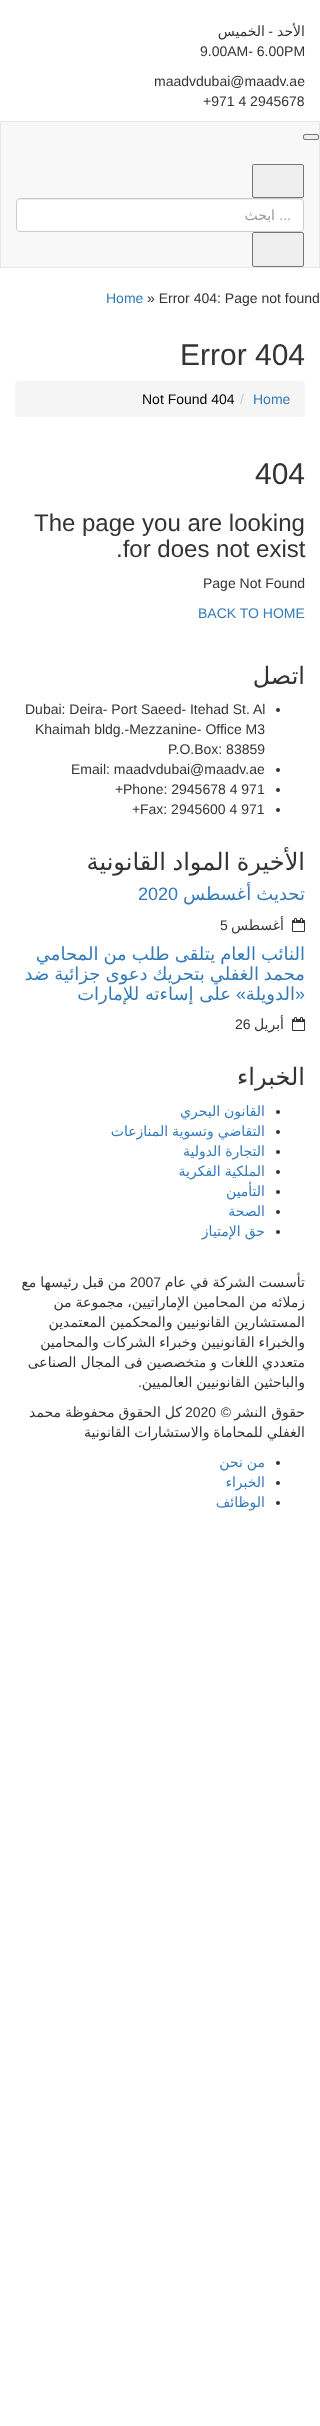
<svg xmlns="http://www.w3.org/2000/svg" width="320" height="2426">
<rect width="100%" height="100%" fill="#fff"/>
<text x="305" y="36" style="font-family:DejaVu Sans;font-size:14px;direction:rtl;fill:#333">الأحد</text>
<text x="273" y="36" style="font-family:Liberation Sans;font-size:14px;direction:rtl;fill:#333">-</text>
<text x="265" y="36" style="font-family:DejaVu Sans;font-size:14px;direction:rtl;fill:#333">الخميس</text>
<text x="200" y="56" style="font-family:Liberation Sans;font-size:14px;fill:#333">9.00AM- 6.00PM</text>
<text x="154" y="86" style="font-family:Liberation Sans;font-size:14px;fill:#333">maadvdubai@maadv.ae</text>
<text x="203" y="106" style="font-family:Liberation Sans;font-size:14px;fill:#333">+971 4 2945678</text>
<rect x="0.5" y="121.5" width="319" height="146" fill="#f8f8f8" stroke="#e7e7e7"/>
<rect x="303.5" y="134.5" width="15" height="5" rx="1.5" fill="#efefef" stroke="#767676"/>
<rect x="252.5" y="164.5" width="51" height="33" rx="1.5" fill="#efefef" stroke="#767676"/>
<rect x="16" y="198" width="288" height="34" rx="4" fill="#fff"/>
<path d="M20 200h280c2 0 3 1 3 3c0-2-1-4-3-4h-280c-2 0-3 2-3 4c0-2 1-3 3-3z" fill="#ececec"/>
<rect x="16.5" y="198.5" width="287" height="33" rx="3.5" fill="none" stroke="#ccc"/>
<text x="291" y="220" style="font-family:Liberation Sans;font-size:14px;direction:rtl;fill:#999">...</text>
<text x="275" y="220" style="font-family:DejaVu Sans;font-size:14px;direction:rtl;fill:#999">ابحث</text>
<rect x="252.5" y="232.5" width="51" height="34" rx="1.5" fill="#efefef" stroke="#767676"/>
<text x="147" y="303" style="font-family:Liberation Sans;font-size:14px;fill:#333">» Error 404: Page not found</text>
<text x="106" y="303" style="font-family:Liberation Sans;font-size:14px;fill:#337ab7">Home</text>
<text x="180" y="365" style="font-family:Liberation Sans;font-size:30px;fill:#333">Error 404</text>
<rect x="15" y="381" width="290" height="36" rx="4" fill="#f5f5f5"/>
<text x="253" y="404" style="font-family:Liberation Sans;font-size:14px;fill:#337ab7">Home</text>
<text x="240" y="404" style="font-family:Liberation Sans;font-size:14px;fill:#ccc">/</text>
<text x="142" y="404" style="font-family:Liberation Sans;font-size:14px;fill:#000">Not Found 404</text>
<text x="255" y="484" style="font-family:Liberation Sans;font-size:30px;fill:#333">404</text>
<text x="34" y="531" style="font-family:Liberation Sans;font-size:24px;fill:#333">The page you are looking</text>
<text x="116" y="557" style="font-family:Liberation Sans;font-size:24px;fill:#333">.for does not exist</text>
<text x="203" y="588" style="font-family:Liberation Sans;font-size:14px;fill:#333">Page Not Found</text>
<text x="198" y="618" style="font-family:Liberation Sans;font-size:14px;fill:#337ab7">BACK TO HOME</text>
<text x="305" y="684" style="font-family:DejaVu Sans;font-size:24px;direction:rtl;fill:#333">اتصل</text>
<circle cx="278" cy="710" r="2" fill="#333"/>
<text x="25" y="714" style="font-family:Liberation Sans;font-size:14px;fill:#333">Dubai: Deira- Port Saeed- Itehad St. Al</text>
<text x="35" y="734" style="font-family:Liberation Sans;font-size:14px;fill:#333">Khaimah bldg.-Mezzanine- Office M3</text>
<text x="168" y="754" style="font-family:Liberation Sans;font-size:14px;fill:#333">P.O.Box: 83859</text>
<circle cx="278" cy="770" r="2" fill="#333"/>
<text x="71" y="774" style="font-family:Liberation Sans;font-size:14px;fill:#333">Email: maadvdubai@maadv.ae</text>
<circle cx="278" cy="790" r="2" fill="#333"/>
<text x="123" y="794" style="font-family:Liberation Sans;font-size:14px;fill:#333">Phone: 2945678 4 971</text>
<text x="115" y="794" style="font-family:Liberation Sans;font-size:14px;fill:#333">+</text>
<circle cx="278" cy="810" r="2" fill="#333"/>
<text x="140" y="814" style="font-family:Liberation Sans;font-size:14px;fill:#333">Fax: 2945600 4 971</text>
<text x="132" y="814" style="font-family:Liberation Sans;font-size:14px;fill:#333">+</text>
<text x="305" y="870" word-spacing="-1" style="font-family:DejaVu Sans;font-size:24px;direction:rtl;fill:#333">الأخيرة المواد القانونية</text>
<text x="305" y="900" word-spacing="-0.75" style="font-family:DejaVu Sans;font-size:18px;direction:rtl;fill:#337ab7">تحديث أغسطس</text>
<text x="138" y="900" style="font-family:Liberation Sans;font-size:18px;fill:#337ab7">2020</text>
<image x="292" y="918" width="13" height="14" href="media/1.png"/>
<text x="284" y="930" style="font-family:DejaVu Sans;font-size:14px;direction:rtl;fill:#333">أغسطس</text>
<text x="220" y="930" style="font-family:Liberation Sans;font-size:14px;fill:#333">5</text>
<text x="305" y="960" word-spacing="-0.75" style="font-family:DejaVu Sans;font-size:18px;direction:rtl;fill:#337ab7">النائب العام يتلقى طلب من المحامي</text>
<text x="305" y="980" word-spacing="-0.75" style="font-family:DejaVu Sans;font-size:18px;direction:rtl;fill:#337ab7">محمد الغفلي بتحريك دعوى جزائية ضد</text>
<text x="305" y="1000" style="font-family:Liberation Sans;font-size:18px;direction:rtl;fill:#337ab7">«</text>
<text x="295" y="1000" style="font-family:DejaVu Sans;font-size:18px;direction:rtl;fill:#337ab7">الدويلة</text>
<text x="246" y="1000" style="font-family:Liberation Sans;font-size:18px;direction:rtl;fill:#337ab7">»</text>
<text x="231" y="1000" style="font-family:DejaVu Sans;font-size:18px;direction:rtl;fill:#337ab7">على إساءته للإمارات</text>
<image x="292" y="1017" width="13" height="14" href="media/1.png"/>
<text x="284" y="1029" style="font-family:DejaVu Sans;font-size:14px;direction:rtl;fill:#333">أبريل</text>
<text x="235" y="1029" style="font-family:Liberation Sans;font-size:14px;fill:#333">26</text>
<text x="305" y="1085" style="font-family:DejaVu Sans;font-size:24px;direction:rtl;fill:#333">الخبراء</text>
<circle cx="278" cy="1112" r="2" fill="#333"/>
<text x="265" y="1116" word-spacing="-0.5" style="font-family:DejaVu Sans;font-size:14px;direction:rtl;fill:#337ab7">القانون البحري</text>
<circle cx="278" cy="1132" r="2" fill="#333"/>
<text x="265" y="1136" word-spacing="-0.5" style="font-family:DejaVu Sans;font-size:14px;direction:rtl;fill:#337ab7">التقاضي وتسوية المنازعات</text>
<circle cx="278" cy="1152" r="2" fill="#333"/>
<text x="265" y="1156" word-spacing="-0.5" style="font-family:DejaVu Sans;font-size:14px;direction:rtl;fill:#337ab7">التجارة الدولية</text>
<circle cx="278" cy="1172" r="2" fill="#333"/>
<text x="265" y="1176" word-spacing="-0.5" style="font-family:DejaVu Sans;font-size:14px;direction:rtl;fill:#337ab7">الملكية الفكرية</text>
<circle cx="278" cy="1192" r="2" fill="#333"/>
<text x="265" y="1196" style="font-family:DejaVu Sans;font-size:14px;direction:rtl;fill:#337ab7">التأمين</text>
<circle cx="278" cy="1212" r="2" fill="#333"/>
<text x="265" y="1216" style="font-family:DejaVu Sans;font-size:14px;direction:rtl;fill:#337ab7">الصحة</text>
<circle cx="278" cy="1232" r="2" fill="#333"/>
<text x="265" y="1236" word-spacing="-0.5" style="font-family:DejaVu Sans;font-size:14px;direction:rtl;fill:#337ab7">حق الإمتياز</text>
<text x="305" y="1287" word-spacing="-0.5" style="font-family:DejaVu Sans;font-size:14px;direction:rtl;fill:#333">تأسست الشركة في عام</text>
<text x="130" y="1287" style="font-family:Liberation Sans;font-size:14px;fill:#333">2007</text>
<text x="126" y="1287" word-spacing="-0.5" style="font-family:DejaVu Sans;font-size:14px;direction:rtl;fill:#333">من قبل رئيسها مع</text>
<text x="305" y="1307" word-spacing="-0.5" style="font-family:DejaVu Sans;font-size:14px;direction:rtl;fill:#333">زملائه من المحامين الإماراتيين، مجموعة من</text>
<text x="305" y="1327" word-spacing="-0.5" style="font-family:DejaVu Sans;font-size:14px;direction:rtl;fill:#333">المستشارين القانونيين والمحكمين المعتمدين</text>
<text x="305" y="1347" word-spacing="-0.5" style="font-family:DejaVu Sans;font-size:14px;direction:rtl;fill:#333">والخبراء القانونيين وخبراء الشركات والمحامين</text>
<text x="305" y="1367" word-spacing="-0.5" style="font-family:DejaVu Sans;font-size:14px;direction:rtl;fill:#333">متعددي اللغات و متخصصين فى المجال الصناعى</text>
<text x="305" y="1387" word-spacing="-0.5" style="font-family:DejaVu Sans;font-size:14px;direction:rtl;fill:#333">والباحثين القانونيين العالميين</text>
<text x="142" y="1387" style="font-family:Liberation Sans;font-size:14px;direction:rtl;fill:#333">.</text>
<text x="305" y="1417" style="font-family:DejaVu Sans;font-size:14px;direction:rtl;fill:#333">حقوق النشر</text>
<text x="231" y="1417" style="font-family:Liberation Sans;font-size:14px;direction:rtl;fill:#333">©</text>
<text x="185" y="1417" style="font-family:Liberation Sans;font-size:14px;fill:#333">2020</text>
<text x="182" y="1417" word-spacing="-0.5" style="font-family:DejaVu Sans;font-size:14px;direction:rtl;fill:#333">كل الحقوق محفوظة محمد</text>
<text x="305" y="1437" word-spacing="-0.5" style="font-family:DejaVu Sans;font-size:14px;direction:rtl;fill:#333">الغفلي للمحاماة والاستشارات القانونية</text>
<circle cx="278" cy="1463" r="2" fill="#333"/>
<text x="265" y="1467" word-spacing="-0.5" style="font-family:DejaVu Sans;font-size:14px;direction:rtl;fill:#337ab7">من نحن</text>
<circle cx="278" cy="1483" r="2" fill="#333"/>
<text x="265" y="1487" style="font-family:DejaVu Sans;font-size:14px;direction:rtl;fill:#337ab7">الخبراء</text>
<circle cx="278" cy="1503" r="2" fill="#333"/>
<text x="265" y="1507" style="font-family:DejaVu Sans;font-size:14px;direction:rtl;fill:#337ab7">الوظائف</text>
</svg>
